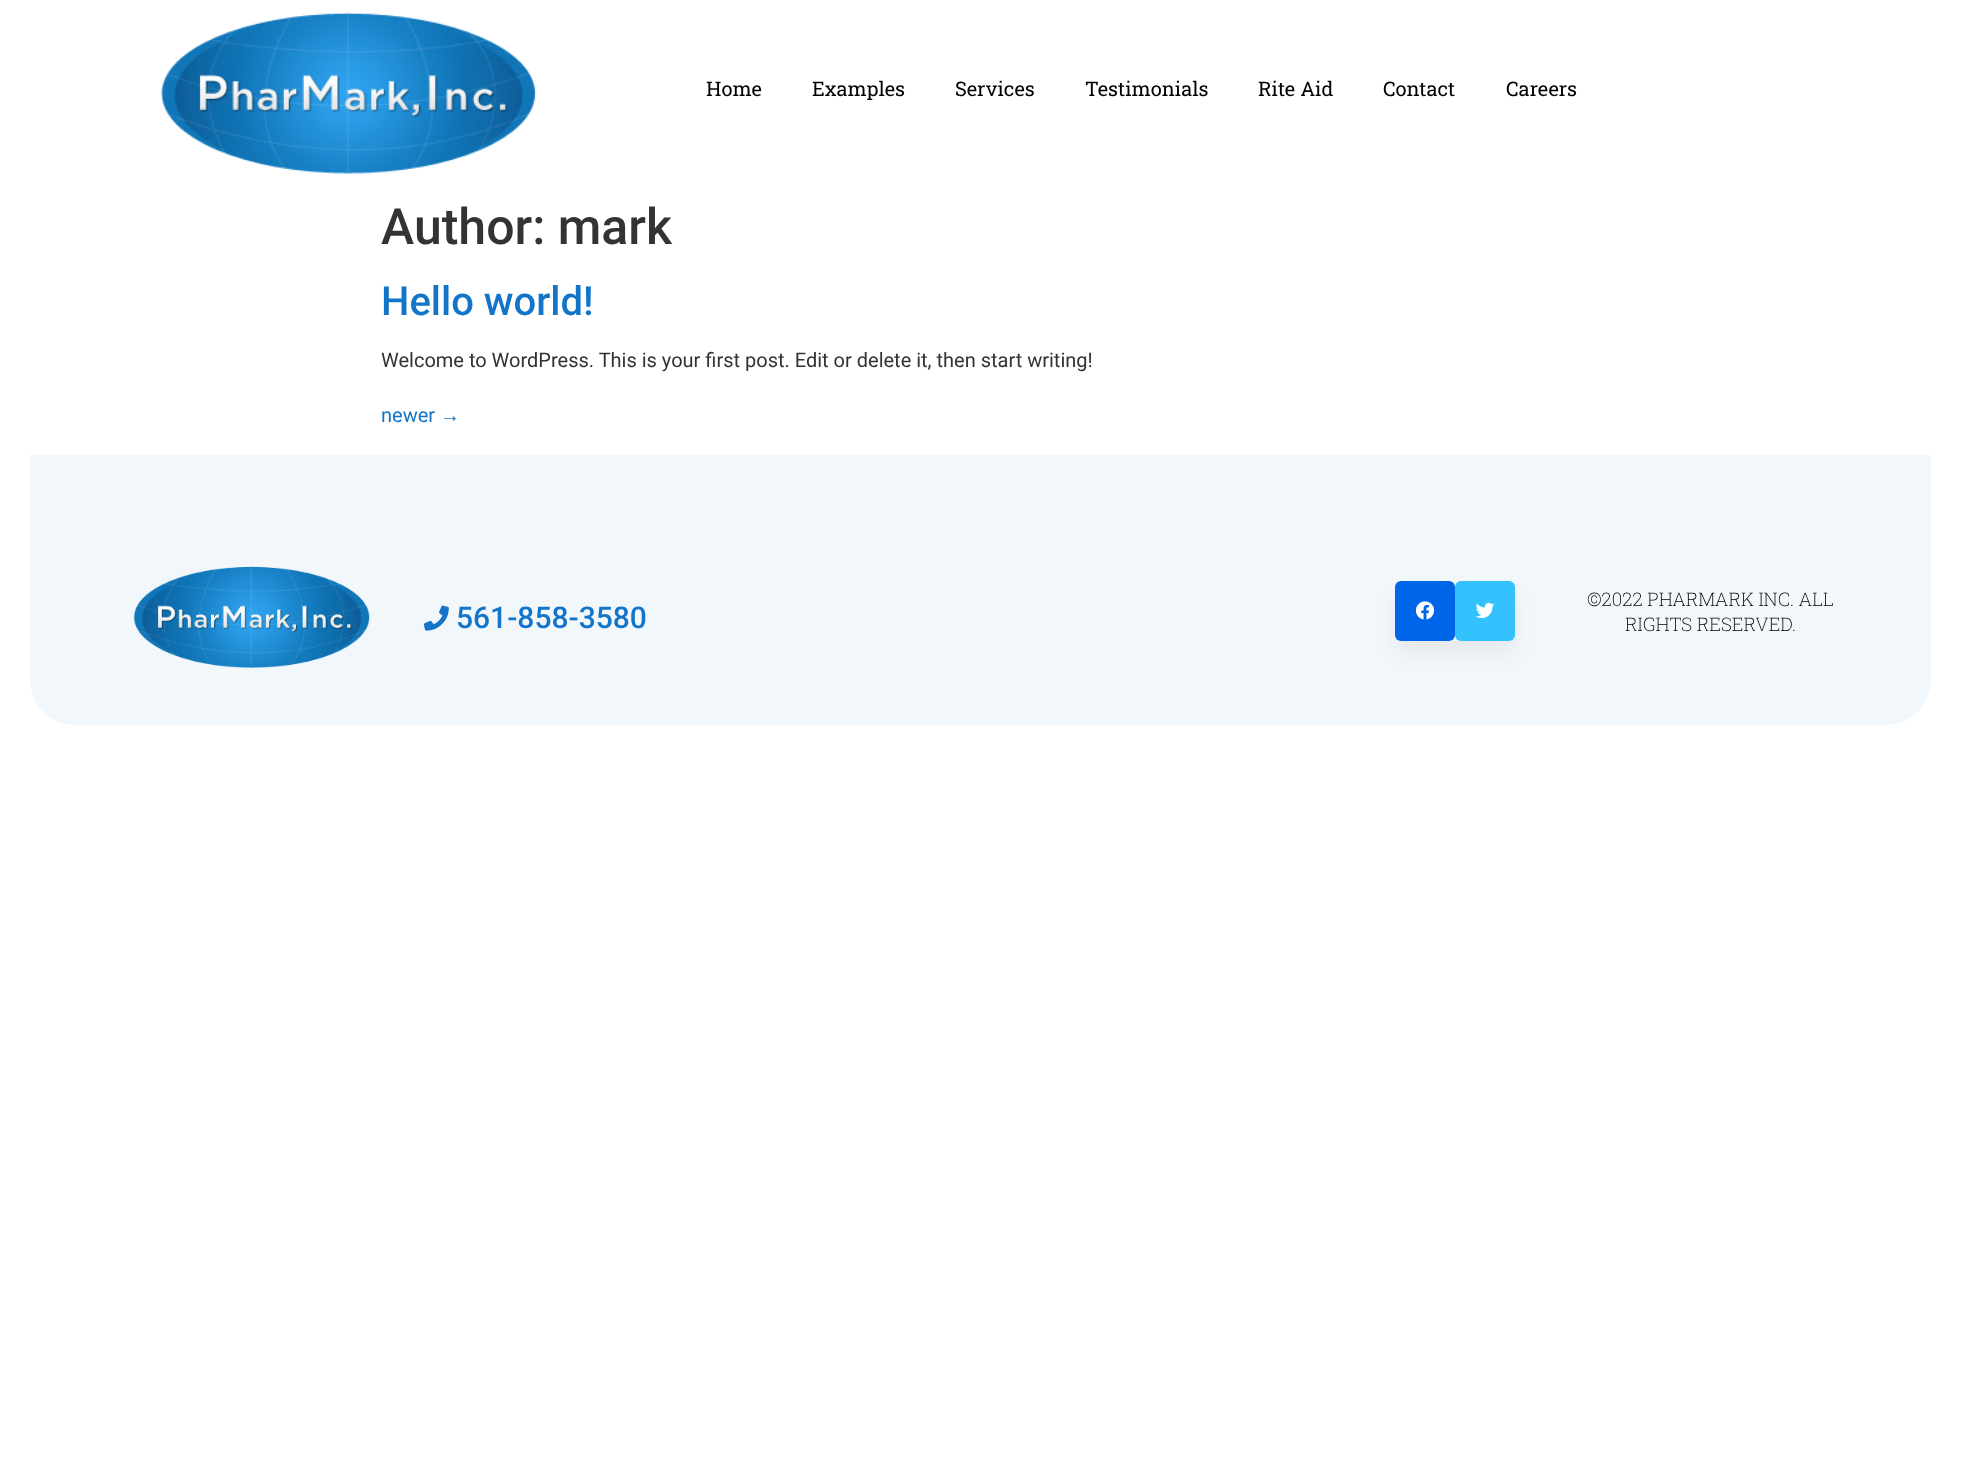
<svg xmlns="http://www.w3.org/2000/svg" width="1961" height="1480">
<defs>
<clipPath id="clip1"><path d="M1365 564h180v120h-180zm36 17h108c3.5 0 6 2.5 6 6v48c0 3.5-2.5 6-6 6h-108c-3.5 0-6-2.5-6-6v-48c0-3.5 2.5-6 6-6z" clip-rule="evenodd"/></clipPath>
</defs>
<rect width="100%" height="100%" fill="#fff"/>
<image x="161" y="12" width="375" height="162" href="media/1.png"/>
<text x="706" y="96" style="font-family:Roboto Slab;font-size:20px;fill:#000">Home</text>
<text x="812" y="96" style="font-family:Roboto Slab;font-size:20px;fill:#000">Examples</text>
<text x="955" y="96" style="font-family:Roboto Slab;font-size:20px;fill:#000">Services</text>
<text x="1085" y="96" style="font-family:Roboto Slab;font-size:20px;fill:#000">Testimonials</text>
<text x="1258" y="96" style="font-family:Roboto Slab;font-size:20px;fill:#000">Rite Aid</text>
<text x="1383" y="96" style="font-family:Roboto Slab;font-size:20px;fill:#000">Contact</text>
<text x="1506" y="96" style="font-family:Roboto Slab;font-size:20px;fill:#000">Careers</text>
<text x="381" y="244" style="font-family:Roboto;font-size:50px;font-weight:500;fill:#333">Author: mark</text>
<text x="381" y="315" style="font-family:Roboto;font-size:40px;font-weight:500;fill:#1275c9">Hello world!</text>
<text x="381" y="367" style="font-family:Roboto;font-size:20px;fill:#333">Welcome to WordPress. This is your first post. Edit or delete it, then start writing!</text>
<text x="381" y="422" style="font-family:Roboto;font-size:20px;fill:#1275c9">newer</text>
<text x="440" y="422" style="font-family:Liberation Sans;font-size:20px;fill:#1275c9">→</text>
<path d="M30 455h1901v225c0 25-20 45-45 45h-1811c-25 0-45-20-45-45z" fill="#f2f7fb"/>
<path d="M0 455h1961v225c0 41-33 75-75 75h-1811c-41 0-75-34-75-75zm30 0h1901v225c0 25-20 45-45 45h-1811c-25 0-45-20-45-45z" fill="#fff" fill-rule="evenodd"/>
<image x="133" y="566" width="237" height="102" href="media/2.png"/>
<image x="423" y="605" width="26" height="26" href="media/3.png"/>
<text x="456" y="628" style="font-family:Roboto;font-size:30px;font-weight:500;fill:#1275c9">561-858-3580</text>
<g clip-path="url(#clip1)">
<rect x="1395" y="594" width="120" height="60" rx="6" fill="#0000000d" filter="blur(9.5px)"/>
</g>
<rect x="1395" y="581" width="60" height="60" rx="6" fill="#0066e9"/>
<image x="1415" y="601" width="20" height="19" href="media/4.png"/>
<rect x="1455" y="581" width="60" height="60" rx="6" fill="#34c2ff"/>
<image x="1475" y="602" width="20" height="17" href="media/5.png"/>
<text x="1587" y="606" style="font-family:Roboto Slab;font-size:18.75px;font-weight:200;fill:#000">©2022 PHARMARK INC. ALL</text>
<text x="1625" y="631" style="font-family:Roboto Slab;font-size:18.75px;font-weight:200;fill:#000">RIGHTS RESERVED.</text>
</svg>
